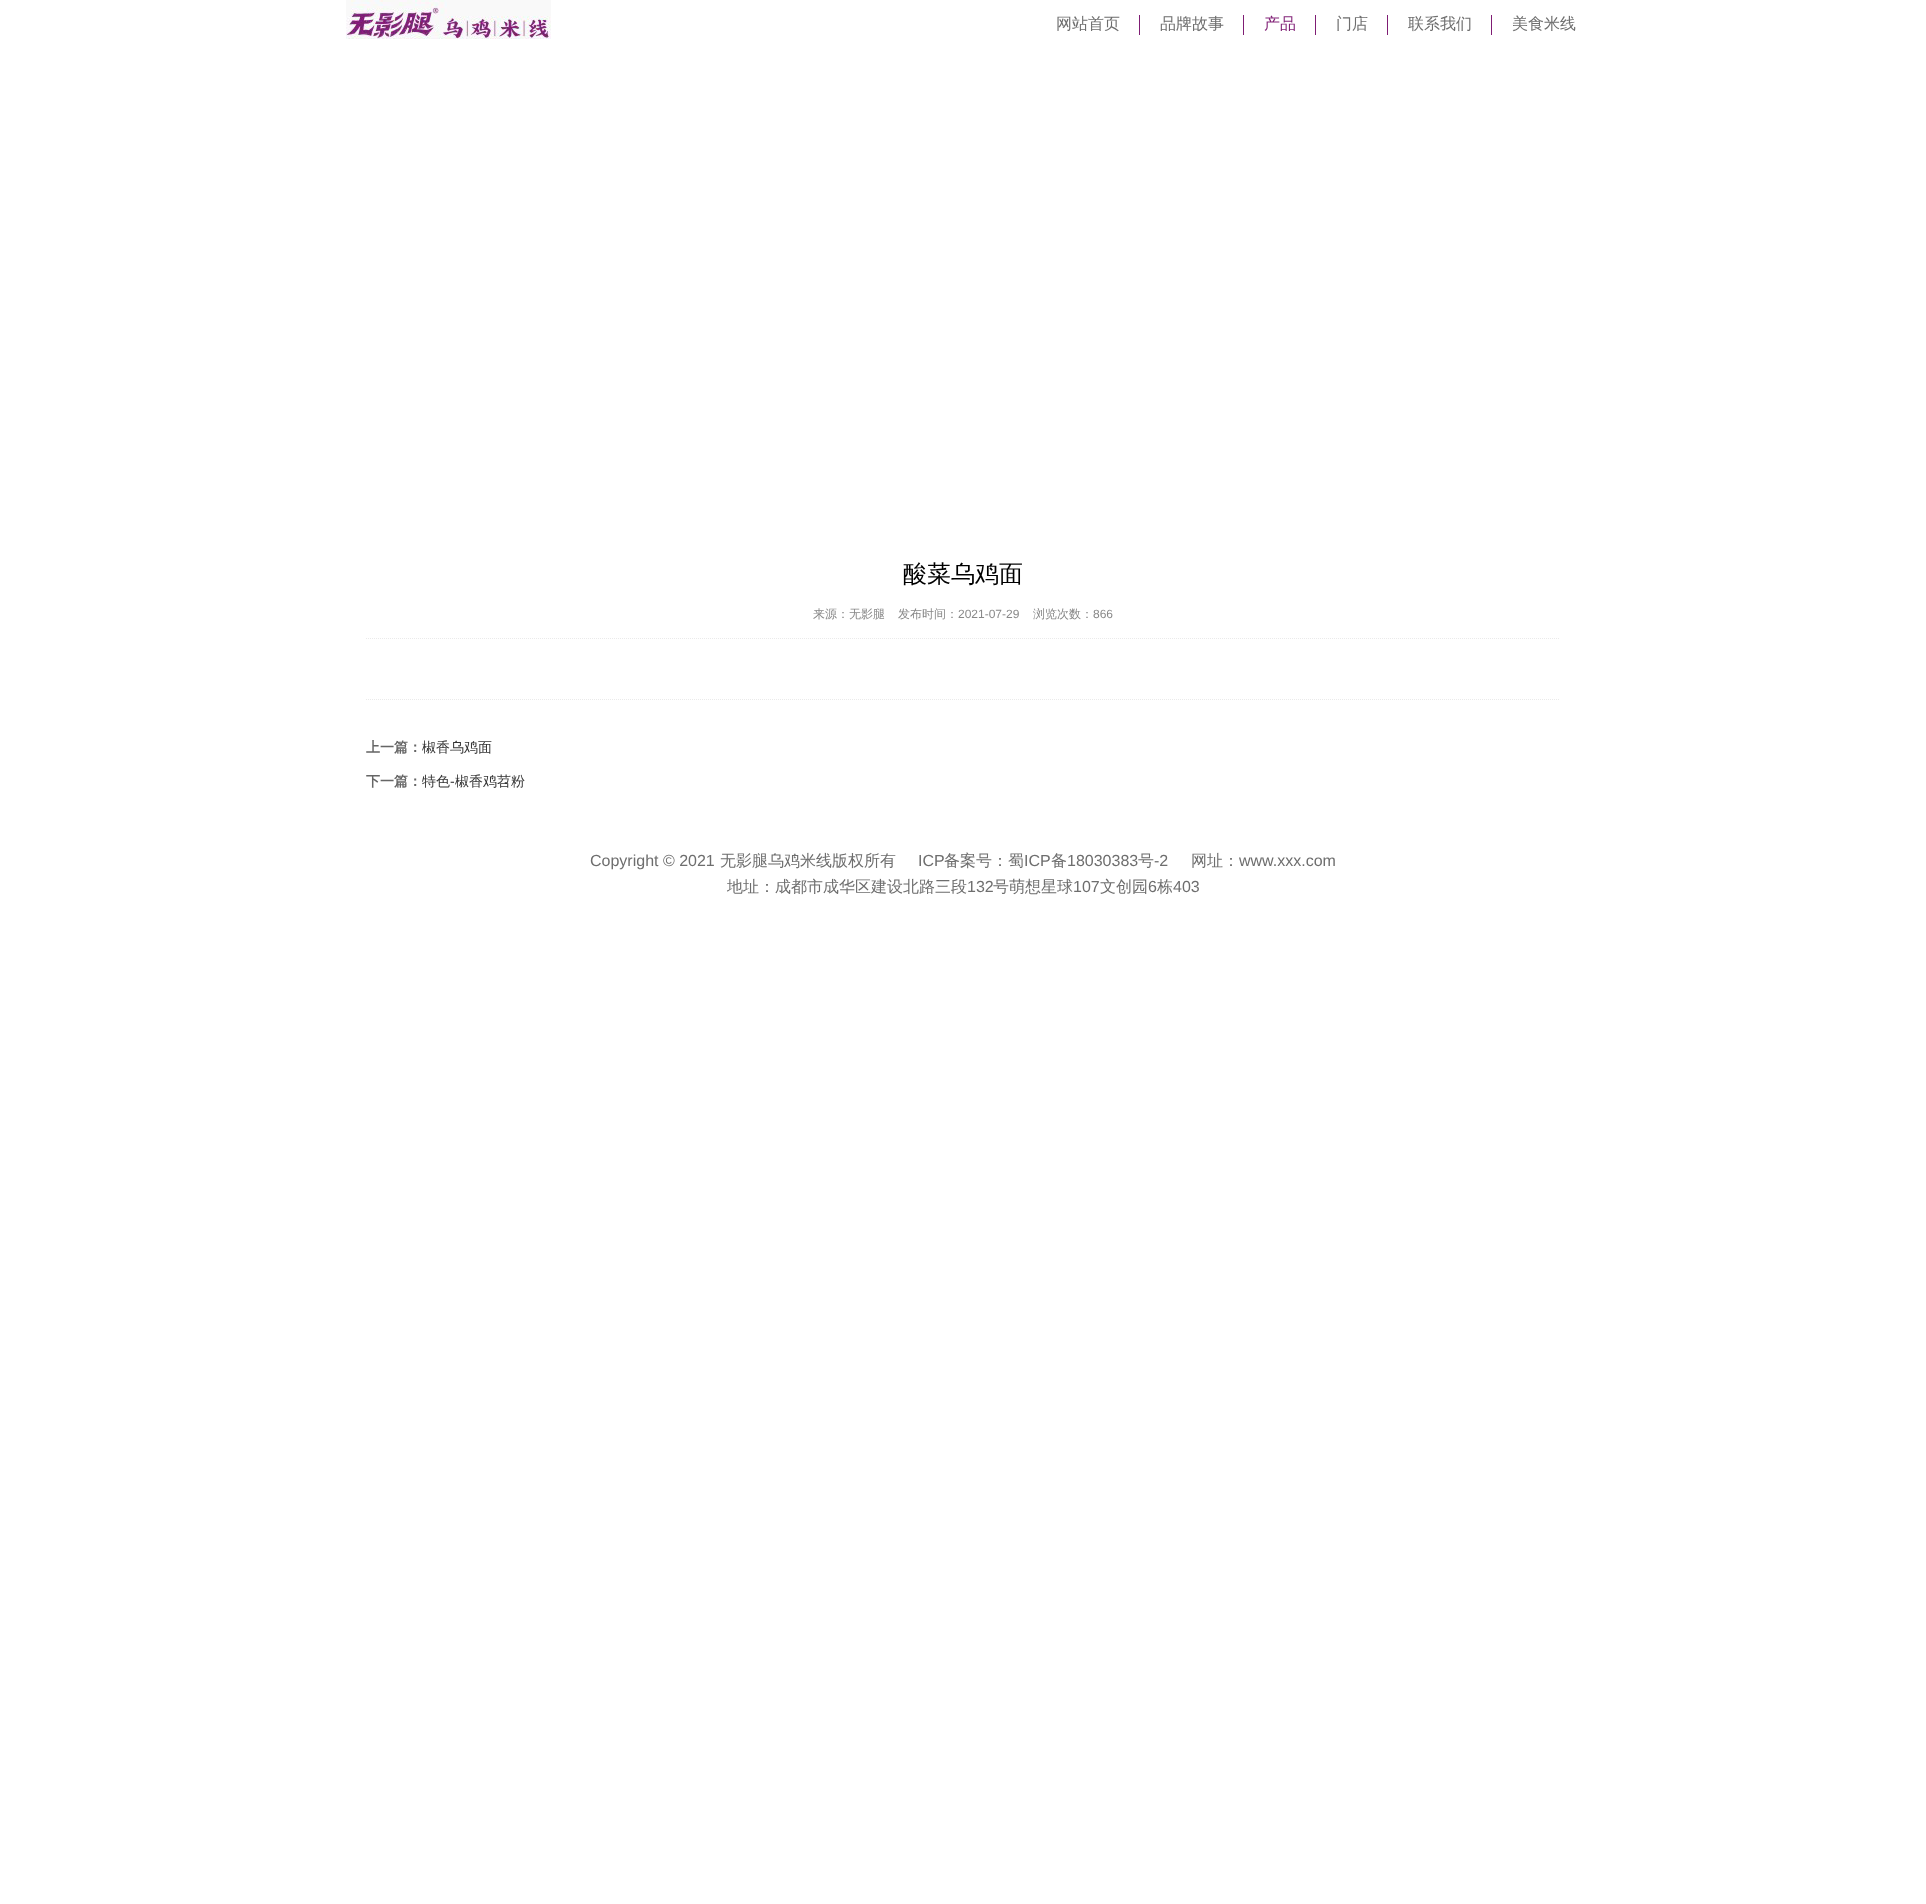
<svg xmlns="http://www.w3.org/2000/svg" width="1926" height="1904">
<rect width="100%" height="100%" fill="#fff"/>
<image x="346" y="0" width="205" height="39" href="media/1.png"/>
<text x="1056" y="29" style="font-family:WenQuanYi Zen Hei;font-size:16px;font-weight:500;fill:#6e6e6e">网站首页</text>
<rect x="1139" y="15" width="1" height="20" fill="#7f1d74"/>
<text x="1160" y="29" style="font-family:WenQuanYi Zen Hei;font-size:16px;font-weight:500;fill:#6e6e6e">品牌故事</text>
<rect x="1243" y="15" width="1" height="20" fill="#7f1d74"/>
<text x="1264" y="29" style="font-family:WenQuanYi Zen Hei;font-size:16px;font-weight:500;fill:#7f1d74">产品</text>
<rect x="1315" y="15" width="1" height="20" fill="#7f1d74"/>
<text x="1336" y="29" style="font-family:WenQuanYi Zen Hei;font-size:16px;font-weight:500;fill:#6e6e6e">门店</text>
<rect x="1387" y="15" width="1" height="20" fill="#7f1d74"/>
<text x="1408" y="29" style="font-family:WenQuanYi Zen Hei;font-size:16px;font-weight:500;fill:#6e6e6e">联系我们</text>
<rect x="1491" y="15" width="1" height="20" fill="#7f1d74"/>
<text x="1512" y="29" style="font-family:WenQuanYi Zen Hei;font-size:16px;font-weight:500;fill:#6e6e6e">美食米线</text>
<path d="M366 699.5h1194" fill="none" stroke="#eaeaea" stroke-dasharray="1 1"/>
<text x="903" y="582" style="font-family:WenQuanYi Zen Hei;font-size:24px;font-weight:500;fill:#000">酸菜乌鸡面</text>
<path d="M366 638.5h1194" fill="none" stroke="#eaeaea" stroke-dasharray="1 1"/>
<text x="813" y="618" style="font-family:WenQuanYi Zen Hei;font-size:12px;font-weight:500;fill:#888">来源：无影腿</text>
<text x="898" y="618" style="font-family:WenQuanYi Zen Hei;font-size:12px;font-weight:500;fill:#888">发布时间：</text>
<text x="958" y="618" style="font-family:Liberation Sans;font-size:12px;fill:#888">2021-07-29</text>
<text x="1033" y="618" style="font-family:WenQuanYi Zen Hei;font-size:12px;font-weight:500;fill:#888">浏览次数：</text>
<text x="1093" y="618" style="font-family:Liberation Sans;font-size:12px;fill:#888">866</text>
<text x="366" y="752" style="font-family:WenQuanYi Zen Hei;font-size:14px;font-weight:bold;fill:#666">上一篇：</text>
<text x="422" y="752" style="font-family:WenQuanYi Zen Hei;font-size:14px;font-weight:500;fill:#333">椒香乌鸡面</text>
<text x="366" y="786" style="font-family:WenQuanYi Zen Hei;font-size:14px;font-weight:bold;fill:#666">下一篇：</text>
<text x="422" y="786" style="font-family:WenQuanYi Zen Hei;font-size:14px;font-weight:500;fill:#333">特色</text>
<text x="450" y="786" style="font-family:Liberation Sans;font-size:14px;fill:#333">-</text>
<text x="455" y="786" style="font-family:WenQuanYi Zen Hei;font-size:14px;font-weight:500;fill:#333">椒香鸡苕粉</text>
<text x="590" y="866" style="font-family:Liberation Sans;font-size:16px;fill:#6e6e6e">Copyright © 2021</text>
<text x="720" y="866" style="font-family:WenQuanYi Zen Hei;font-size:16px;font-weight:500;fill:#6e6e6e">无影腿乌鸡米线版权所有</text>
<text x="918" y="866" style="font-family:Liberation Sans;font-size:16px;fill:#6e6e6e">ICP</text>
<text x="944" y="866" style="font-family:WenQuanYi Zen Hei;font-size:16px;font-weight:500;fill:#6e6e6e">备案号：蜀</text>
<text x="1024" y="866" style="font-family:Liberation Sans;font-size:16px;fill:#6e6e6e">ICP</text>
<text x="1051" y="866" style="font-family:WenQuanYi Zen Hei;font-size:16px;font-weight:500;fill:#6e6e6e">备</text>
<text x="1067" y="866" style="font-family:Liberation Sans;font-size:16px;fill:#6e6e6e">18030383</text>
<text x="1138" y="866" style="font-family:WenQuanYi Zen Hei;font-size:16px;font-weight:500;fill:#6e6e6e">号</text>
<text x="1154" y="866" style="font-family:Liberation Sans;font-size:16px;fill:#6e6e6e">-2</text>
<text x="1191" y="866" style="font-family:WenQuanYi Zen Hei;font-size:16px;font-weight:500;fill:#6e6e6e">网址：</text>
<text x="1239" y="866" style="font-family:Liberation Sans;font-size:16px;fill:#6e6e6e">www.xxx.com</text>
<text x="727" y="892" style="font-family:WenQuanYi Zen Hei;font-size:16px;font-weight:500;fill:#6e6e6e">地址：成都市成华区建设北路三段</text>
<text x="967" y="892" style="font-family:Liberation Sans;font-size:16px;fill:#6e6e6e">132</text>
<text x="993" y="892" style="font-family:WenQuanYi Zen Hei;font-size:16px;font-weight:500;fill:#6e6e6e">号萌想星球</text>
<text x="1073" y="892" style="font-family:Liberation Sans;font-size:16px;fill:#6e6e6e">107</text>
<text x="1100" y="892" style="font-family:WenQuanYi Zen Hei;font-size:16px;font-weight:500;fill:#6e6e6e">文创园</text>
<text x="1148" y="892" style="font-family:Liberation Sans;font-size:16px;fill:#6e6e6e">6</text>
<text x="1157" y="892" style="font-family:WenQuanYi Zen Hei;font-size:16px;font-weight:500;fill:#6e6e6e">栋</text>
<text x="1173" y="892" style="font-family:Liberation Sans;font-size:16px;fill:#6e6e6e">403</text>
</svg>
